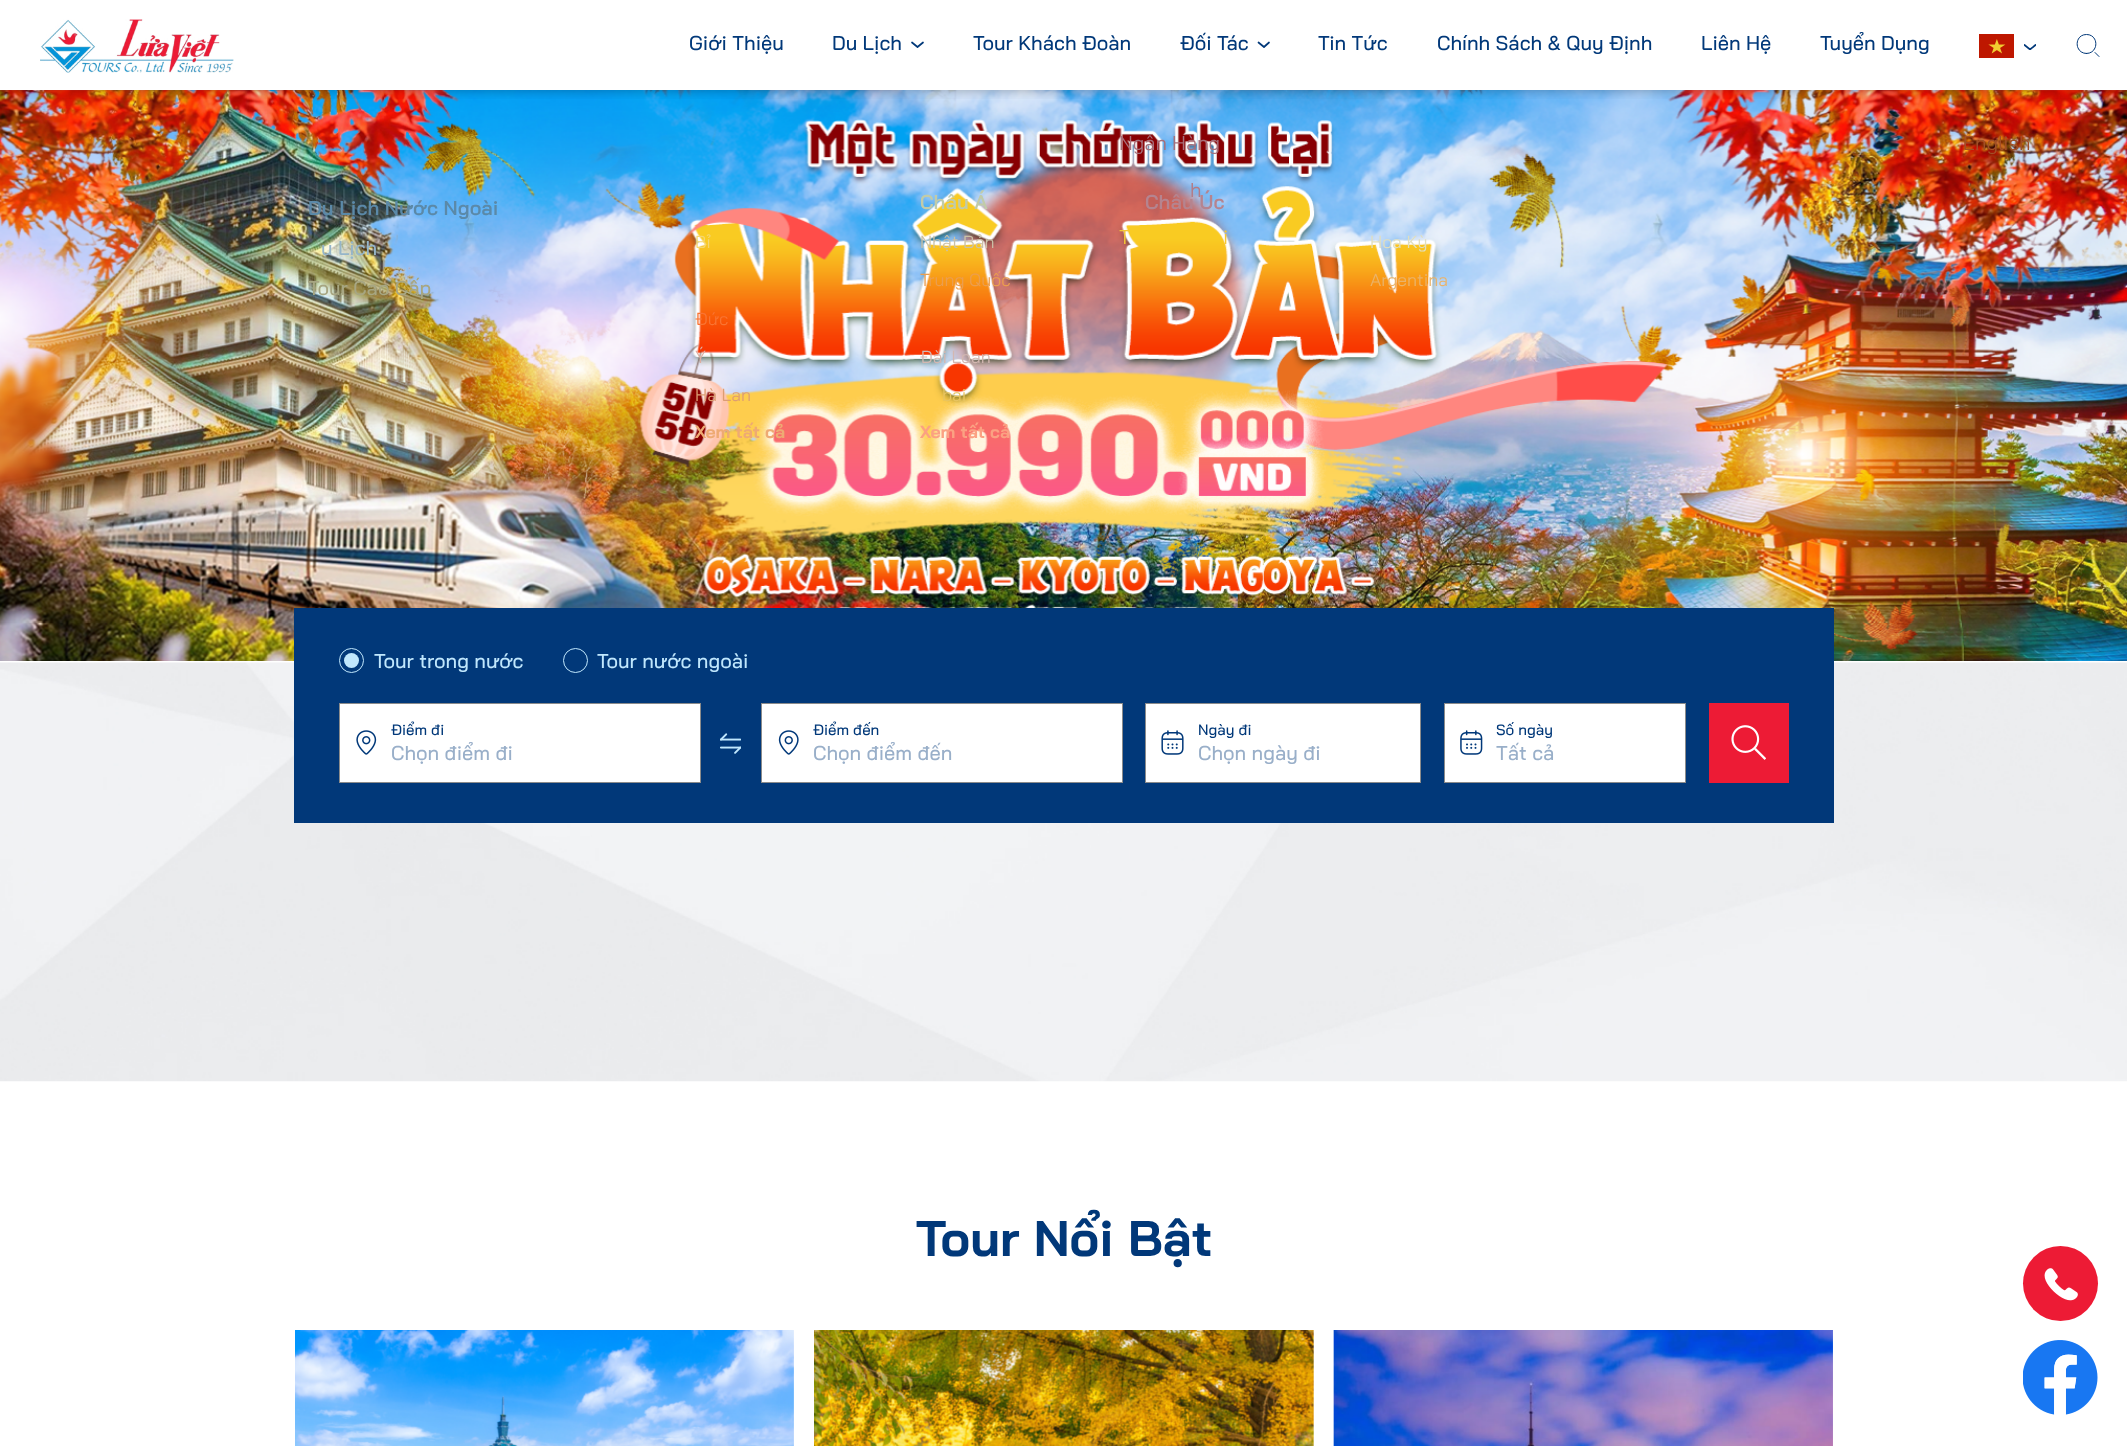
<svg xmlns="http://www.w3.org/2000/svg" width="2127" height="1446">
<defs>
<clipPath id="clip1"><rect x="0" y="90" width="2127" height="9"/></clipPath>
<clipPath id="clip2"><rect x="2024" y="44" width="12" height="6"/></clipPath>
</defs>
<rect width="100%" height="100%" fill="#fff"/>
<image x="0" y="90" width="2127" height="571" href="media/3.png"/>
<g clip-path="url(#clip1)">
<rect width="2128" height="90" fill="#0000004d" filter="blur(6px)"/>
</g>
<image x="40" y="19" width="194" height="54" href="media/1.png"/>
<text x="689" y="50" style="font-family:Bai Jamjuree;font-size:20px;font-weight:500;fill:#013879">Giới Thiệu</text>
<text x="973" y="50" style="font-family:Bai Jamjuree;font-size:20px;font-weight:500;fill:#013879">Tour Khách Đoàn</text>
<text x="1180" y="50" style="font-family:Bai Jamjuree;font-size:20px;font-weight:500;fill:#013879">Đối Tác</text>
<path d="M1269 42.5l-5 4.5l-5.5-4.5" fill="none" stroke="#013879" stroke-width="1.7" stroke-linecap="round" stroke-linejoin="round"/>
<text x="1119" y="150" style="font-family:Bai Jamjuree;font-size:20px;fill:#a7707b">Ngân Hàng</text>
<text x="1145" y="209" style="font-family:Bai Jamjuree;font-size:20px;font-weight:600;fill:#b5848f">Châu Úc</text>
<text x="1190" y="197" style="font-family:Bai Jamjuree;font-size:20px;fill:#b47b85">h</text>
<text x="1119" y="244" style="font-family:Bai Jamjuree;font-size:20px;fill:#f4c737">T</text>
<text x="1223" y="244" style="font-family:Bai Jamjuree;font-size:20px;fill:#f4c737">i</text>
<text x="1318" y="50" style="font-family:Bai Jamjuree;font-size:20px;font-weight:500;fill:#013879">Tin Tức</text>
<text x="1437" y="50" style="font-family:Bai Jamjuree;font-size:20px;font-weight:500;fill:#013879">Chính Sách &amp; Quy Định</text>
<text x="1701" y="50" style="font-family:Bai Jamjuree;font-size:20px;font-weight:500;fill:#013879">Liên Hệ</text>
<text x="1820" y="50" style="font-family:Bai Jamjuree;font-size:20px;font-weight:500;fill:#013879">Tuyển Dụng</text>
<text x="832" y="50" style="font-family:Bai Jamjuree;font-size:20px;font-weight:500;fill:#013879">Du Lịch</text>
<path d="M923 42.5l-5.5 4.5l-5.5-4.5" fill="none" stroke="#013879" stroke-width="1.7" stroke-linecap="round" stroke-linejoin="round"/>
<text x="308" y="215" style="font-family:Bai Jamjuree;font-size:20px;font-weight:600;fill:#5b89a8">Du Lịch Nước Ngoài</text>
<text x="321" y="255" style="font-family:Bai Jamjuree;font-size:20px;font-weight:500;fill:#95b5c9">u Lịch</text>
<text x="308" y="295" style="font-family:Bai Jamjuree;font-size:20px;font-weight:500;fill:#a7a682">Tour Cao Cấp</text>
<text x="920" y="209" style="font-family:Bai Jamjuree;font-size:20px;font-weight:600;fill:#c1cba9">Châu Á</text>
<text x="920" y="248" style="font-family:Bai Jamjuree;font-size:17.5px;fill:#cbc1a6">Nhật Bản</text>
<text x="920" y="286" style="font-family:Bai Jamjuree;font-size:17.5px;fill:#eb9e4e">Trung Quốc</text>
<text x="920" y="363" style="font-family:Bai Jamjuree;font-size:17.5px;fill:#d3b7b1">Đài Loan</text>
<text x="942" y="401" style="font-family:Bai Jamjuree;font-size:17.5px;fill:#e8c460">bai</text>
<text x="920" y="438" style="font-family:Bai Jamjuree;font-size:17.5px;font-weight:bold;fill:#fba182">Xem tất cả</text>
<text x="695" y="248" style="font-family:Bai Jamjuree;font-size:17.5px;fill:#f5d76f">Bỉ</text>
<text x="695" y="325" style="font-family:Bai Jamjuree;font-size:17.5px;fill:#f97432">Đức</text>
<text x="695" y="363" style="font-family:Bai Jamjuree;font-size:17.5px;fill:#ddaea1">Ý</text>
<text x="695" y="401" style="font-family:Bai Jamjuree;font-size:17.5px;fill:#dd9e72">Hà Lan</text>
<text x="695" y="438" style="font-family:Bai Jamjuree;font-size:17.5px;font-weight:bold;fill:#eeaa73">Xem tất cả</text>
<text x="1370" y="248" style="font-family:Bai Jamjuree;font-size:17.5px;fill:#e0debf">Hoa Kỳ</text>
<text x="1370" y="286" style="font-family:Bai Jamjuree;font-size:17.5px;fill:#eab36a">Argentina</text>
<image x="1979" y="34" width="35" height="24" href="media/2.png"/>
<g clip-path="url(#clip2)">
<path d="M2035.5 45l-5.5 4.5l-5.5-4.5" fill="none" stroke="#013879" stroke-width="1.7" stroke-linecap="round" stroke-linejoin="round"/>
</g>
<text x="1963" y="150" style="font-family:Bai Jamjuree;font-size:20px;fill:#a14f27">English</text>
<path d="M2086.5 53.5c12.5 0 12.5-19 0-19c-12.5 0-12.5 19 0 19zm12.5 3l-4-4" fill="none" stroke="#013879" stroke-linecap="round" stroke-linejoin="round"/>
<image x="0" y="662" width="2127" height="420" href="media/10.png"/>
<rect x="294" y="608" width="1540" height="215" fill="#013879"/>
<circle cx="351.5" cy="660.5" r="12" fill="none" stroke="#c0e7fd"/>
<circle cx="351.5" cy="660.5" r="7.5" fill="#c0e7fd"/>
<text x="374" y="668" style="font-family:Bai Jamjuree;font-size:20px;font-weight:500;fill:#c0e7fd">Tour trong nước</text>
<circle cx="575.5" cy="660.5" r="12" fill="none" stroke="#c0e7fd"/>
<text x="597" y="668" style="font-family:Bai Jamjuree;font-size:20px;font-weight:500;fill:#c0e7fd">Tour nước ngoài</text>
<rect x="340" y="704" width="360" height="78" fill="#fff"/>
<image x="356" y="730" width="21" height="25" href="media/4.png"/>
<rect x="339.5" y="703.5" width="361" height="79" fill="none" stroke="#8b8b8b"/>
<text x="391" y="735" style="font-family:Bai Jamjuree;font-size:15px;font-weight:500;fill:#013879">Điểm đi</text>
<text x="391" y="760" style="font-family:Bai Jamjuree;font-size:20px;font-weight:500;fill:#99afc9">Chọn điểm đi</text>
<rect x="762" y="704" width="360" height="78" fill="#fff"/>
<image x="778" y="730" width="21" height="25" href="media/5.png"/>
<rect x="761.5" y="703.5" width="361" height="79" fill="none" stroke="#8b8b8b"/>
<text x="813" y="735" style="font-family:Bai Jamjuree;font-size:15px;font-weight:500;fill:#013879">Điểm đến</text>
<image x="720" y="733" width="21" height="21" href="media/6.png"/>
<text x="813" y="760" style="font-family:Bai Jamjuree;font-size:20px;font-weight:500;fill:#99afc9">Chọn điểm đến</text>
<rect x="1146" y="704" width="274" height="78" fill="#fff"/>
<image x="1161" y="730" width="23" height="25" href="media/7.png"/>
<rect x="1145.5" y="703.5" width="275" height="79" fill="none" stroke="#8b8b8b"/>
<text x="1198" y="735" style="font-family:Bai Jamjuree;font-size:15px;font-weight:500;fill:#013879">Ngày đi</text>
<text x="1198" y="760" style="font-family:Bai Jamjuree;font-size:20px;font-weight:500;fill:#99afc9">Chọn ngày đi</text>
<rect x="1445" y="704" width="240" height="78" fill="#fff"/>
<image x="1460" y="730" width="23" height="25" href="media/8.png"/>
<rect x="1444.5" y="703.5" width="241" height="79" fill="none" stroke="#8b8b8b"/>
<text x="1496" y="735" style="font-family:Bai Jamjuree;font-size:15px;font-weight:500;fill:#013879">Số ngày</text>
<text x="1496" y="760" style="font-family:Bai Jamjuree;font-size:20px;font-weight:500;fill:#99afc9">Tất cả</text>
<rect x="1709" y="703" width="80" height="80" fill="#ed1b35"/>
<image x="1731" y="725" width="35" height="35" href="media/9.png"/>
<text x="916" y="1256" style="font-family:Bai Jamjuree;font-size:50px;font-weight:bold;fill:#013879">Tour Nổi Bật</text>
<image x="295" y="1330" width="499" height="116" href="media/11.png"/>
<image x="814" y="1330" width="500" height="116" href="media/12.png"/>
<image x="1333" y="1330" width="500" height="116" href="media/13.png"/>
<circle cx="2060.5" cy="1283.5" r="37.5" fill="#ed1b35"/>
<image x="2044" y="1268" width="34" height="33" href="media/14.png"/>
<image x="2023" y="1340" width="75" height="75" href="media/15.png"/>
</svg>
